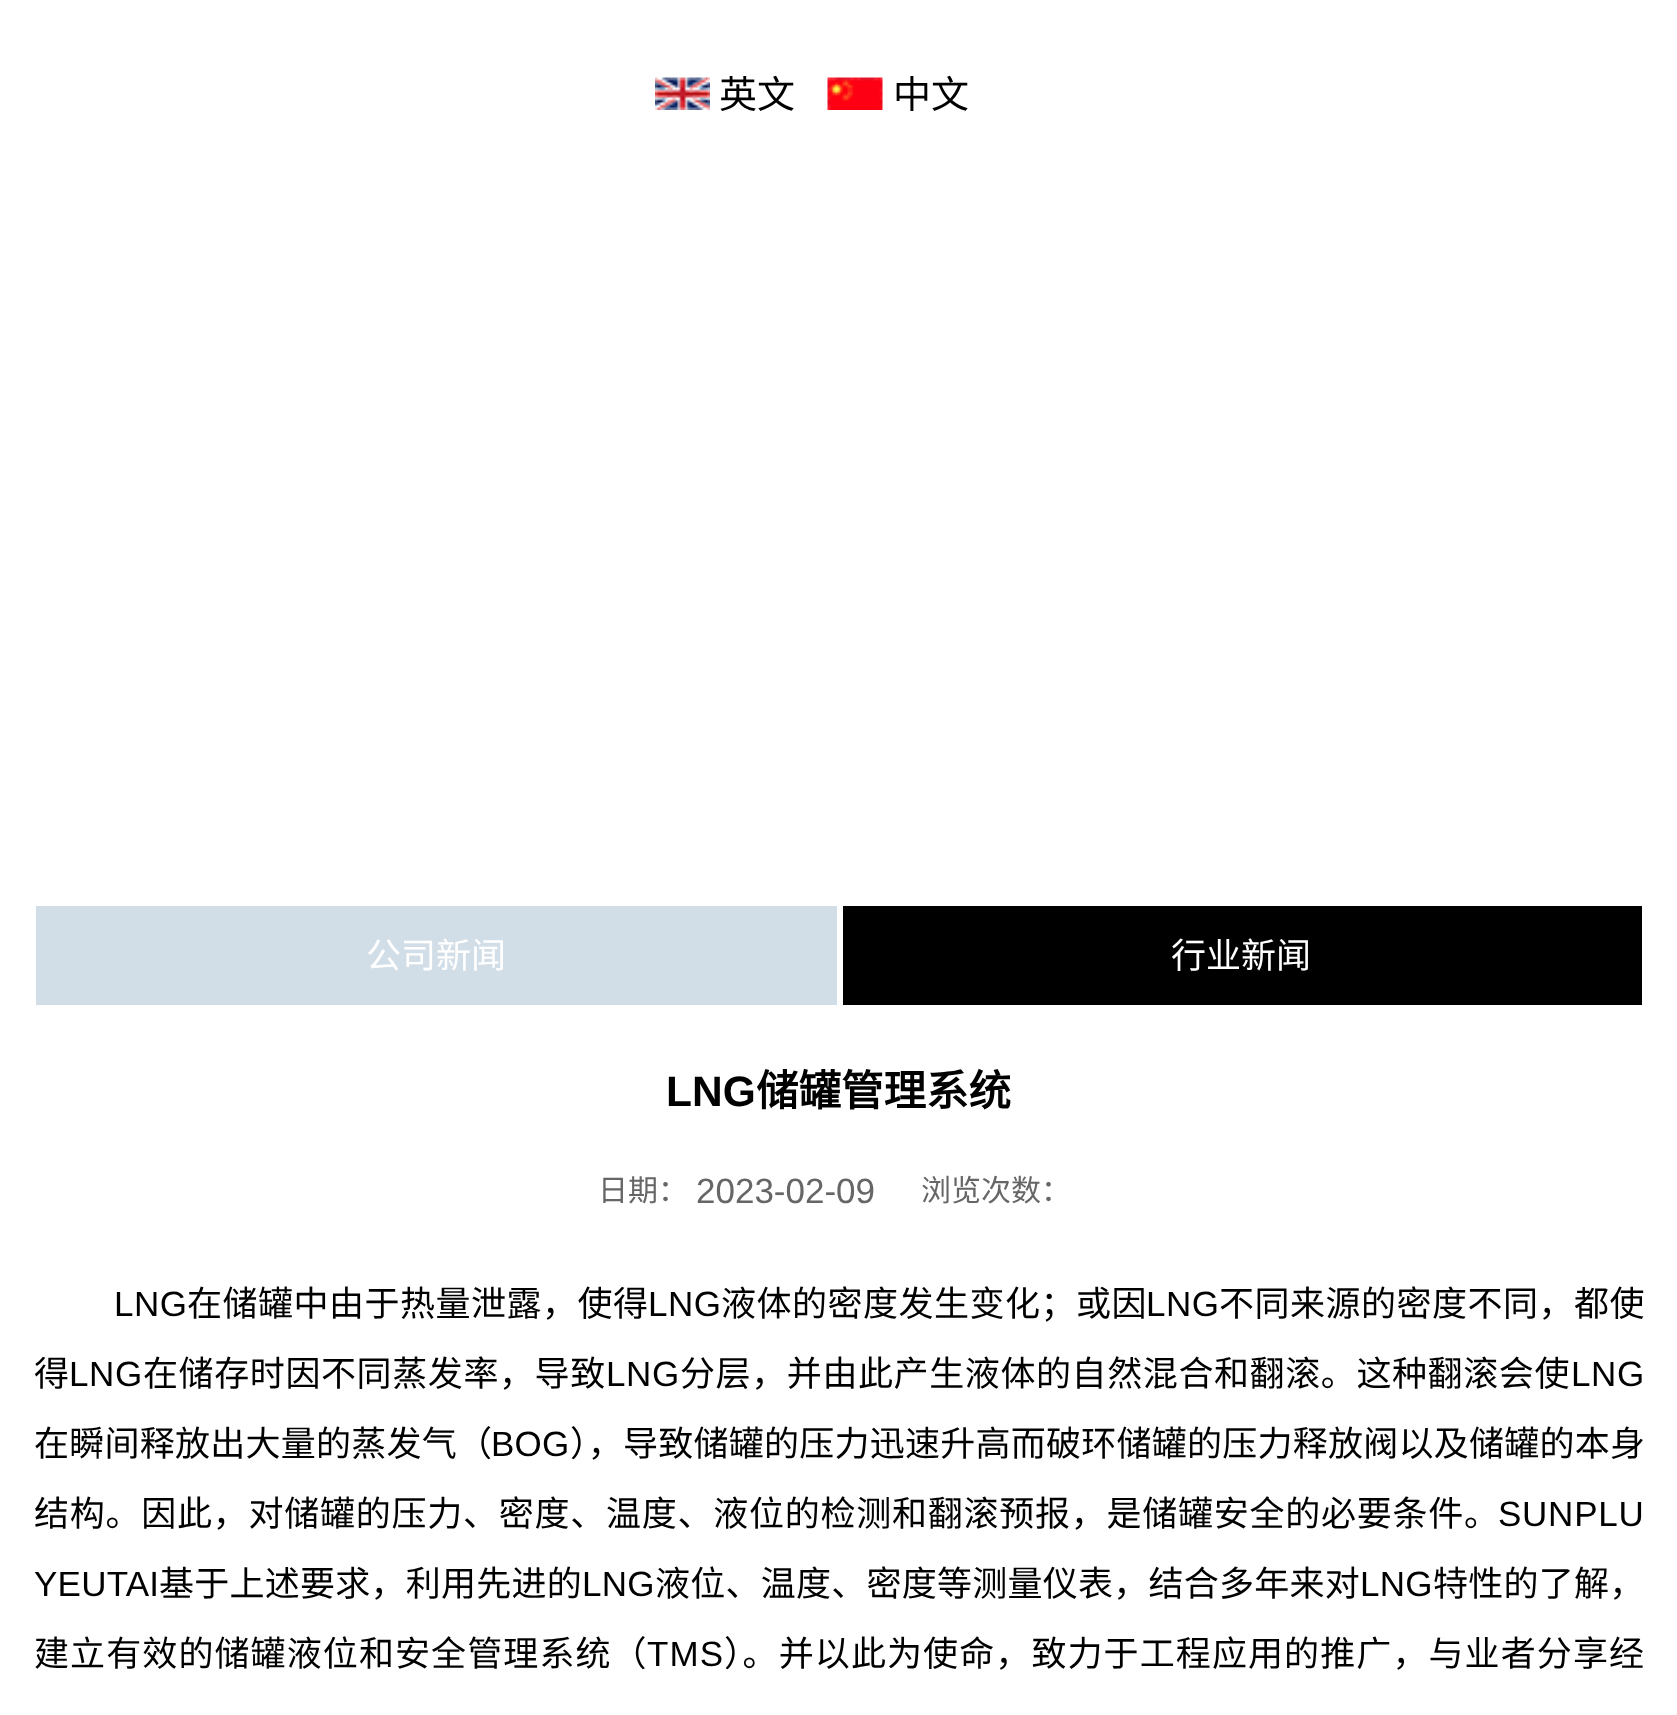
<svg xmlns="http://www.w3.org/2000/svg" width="1677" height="1715">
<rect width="100%" height="100%" fill="#fff"/>
<image x="655" y="77" width="55" height="33" href="media/1.png"/>
<text x="719" y="108" style="font-family:Noto Sans CJK SC;font-size:38px;fill:#000">英文</text>
<image x="827" y="77" width="56" height="33" href="media/2.png"/>
<text x="893" y="108" style="font-family:Noto Sans CJK SC;font-size:38px;fill:#000">中文</text>
<rect x="36" y="906" width="801" height="99" fill="#d2dee7"/>
<text x="366" y="968" style="font-family:Noto Sans CJK SC;font-size:35px;fill:#fff">公司新闻</text>
<rect x="843" y="906" width="799" height="99" fill="#000"/>
<text x="1171" y="968" style="font-family:Noto Sans CJK SC;font-size:35px;fill:#fff">行业新闻</text>
<text x="666" y="1106" style="font-family:Liberation Sans;font-size:42.5px;font-weight:bold;fill:#000">LNG</text>
<text x="756" y="1106" style="font-family:Noto Sans CJK SC;font-size:42.5px;font-weight:bold;fill:#000">储罐管理系统</text>
<text x="598" y="1201" style="font-family:Noto Sans CJK SC;font-size:30px;fill:#666">日期：</text>
<text x="696" y="1203" style="font-family:Liberation Sans;font-size:35px;fill:#666">2023-02-09</text>
<text x="921" y="1201" style="font-family:Noto Sans CJK SC;font-size:30px;fill:#666">浏览次数：</text>
<text x="114" y="1316" style="font-family:Liberation Sans;font-size:35px;letter-spacing:0.5px;fill:#000">LNG</text>
<text x="187" y="1316" style="font-family:Noto Sans CJK SC;font-size:35px;letter-spacing:0.5px;fill:#000">在储罐中由于热量泄露，使得</text>
<text x="648" y="1316" style="font-family:Liberation Sans;font-size:35px;letter-spacing:0.5px;fill:#000">LNG</text>
<text x="721" y="1316" style="font-family:Noto Sans CJK SC;font-size:35px;letter-spacing:0.5px;fill:#000">液体的密度发生变化；或因</text>
<text x="1146" y="1316" style="font-family:Liberation Sans;font-size:35px;letter-spacing:0.5px;fill:#000">LNG</text>
<text x="1219" y="1316" style="font-family:Noto Sans CJK SC;font-size:35px;letter-spacing:0.5px;fill:#000">不同来源的密度不同，都使</text>
<text x="34" y="1386" style="font-family:Noto Sans CJK SC;font-size:35px;letter-spacing:0.6px;fill:#000">得</text>
<text x="69" y="1386" style="font-family:Liberation Sans;font-size:35px;letter-spacing:0.6px;fill:#000">LNG</text>
<text x="143" y="1386" style="font-family:Noto Sans CJK SC;font-size:35px;letter-spacing:0.6px;fill:#000">在储存时因不同蒸发率，导致</text>
<text x="606" y="1386" style="font-family:Liberation Sans;font-size:35px;letter-spacing:0.6px;fill:#000">LNG</text>
<text x="680" y="1386" style="font-family:Noto Sans CJK SC;font-size:35px;letter-spacing:0.6px;fill:#000">分层，并由此产生液体的自然混合和翻滚。这种翻滚会使</text>
<text x="1571" y="1386" style="font-family:Liberation Sans;font-size:35px;letter-spacing:0.6px;fill:#000">LNG</text>
<text x="34" y="1456" style="font-family:Noto Sans CJK SC;font-size:35px;letter-spacing:0.25px;fill:#000">在瞬间释放出大量的蒸发气（</text>
<text x="491" y="1456" style="font-family:Liberation Sans;font-size:35px;letter-spacing:0.25px;fill:#000">BOG</text>
<text x="570" y="1456" style="font-family:Noto Sans CJK SC;font-size:35px;letter-spacing:0.25px;fill:#000">），导致储罐的压力迅速升高而破环储罐的压力释放阀以及储罐的本身</text>
<text x="34" y="1526" style="font-family:Noto Sans CJK SC;font-size:35px;letter-spacing:0.75px;fill:#000">结构。因此，对储罐的压力、密度、温度、液位的检测和翻滚预报，是储罐安全的必要条件。</text>
<text x="1498" y="1526" style="font-family:Liberation Sans;font-size:35px;letter-spacing:0.75px;fill:#000">SUNPLU</text>
<text x="34" y="1596" style="font-family:Liberation Sans;font-size:35px;letter-spacing:0.25px;fill:#000">YEUTAI</text>
<text x="159" y="1596" style="font-family:Noto Sans CJK SC;font-size:35px;letter-spacing:0.25px;fill:#000">基于上述要求，利用先进的</text>
<text x="582" y="1596" style="font-family:Liberation Sans;font-size:35px;letter-spacing:0.25px;fill:#000">LNG</text>
<text x="655" y="1596" style="font-family:Noto Sans CJK SC;font-size:35px;letter-spacing:0.25px;fill:#000">液位、温度、密度等测量仪表，结合多年来对</text>
<text x="1360" y="1596" style="font-family:Liberation Sans;font-size:35px;letter-spacing:0.25px;fill:#000">LNG</text>
<text x="1433" y="1596" style="font-family:Noto Sans CJK SC;font-size:35px;letter-spacing:0.25px;fill:#000">特性的了解，</text>
<text x="34" y="1666" style="font-family:Noto Sans CJK SC;font-size:35px;letter-spacing:1.1px;fill:#000">建立有效的储罐液位和安全管理系统（</text>
<text x="647" y="1666" style="font-family:Liberation Sans;font-size:35px;letter-spacing:1.1px;fill:#000">TMS</text>
<text x="724" y="1666" style="font-family:Noto Sans CJK SC;font-size:35px;letter-spacing:1.1px;fill:#000">）。并以此为使命，致力于工程应用的推广，与业者分享经</text>
</svg>
